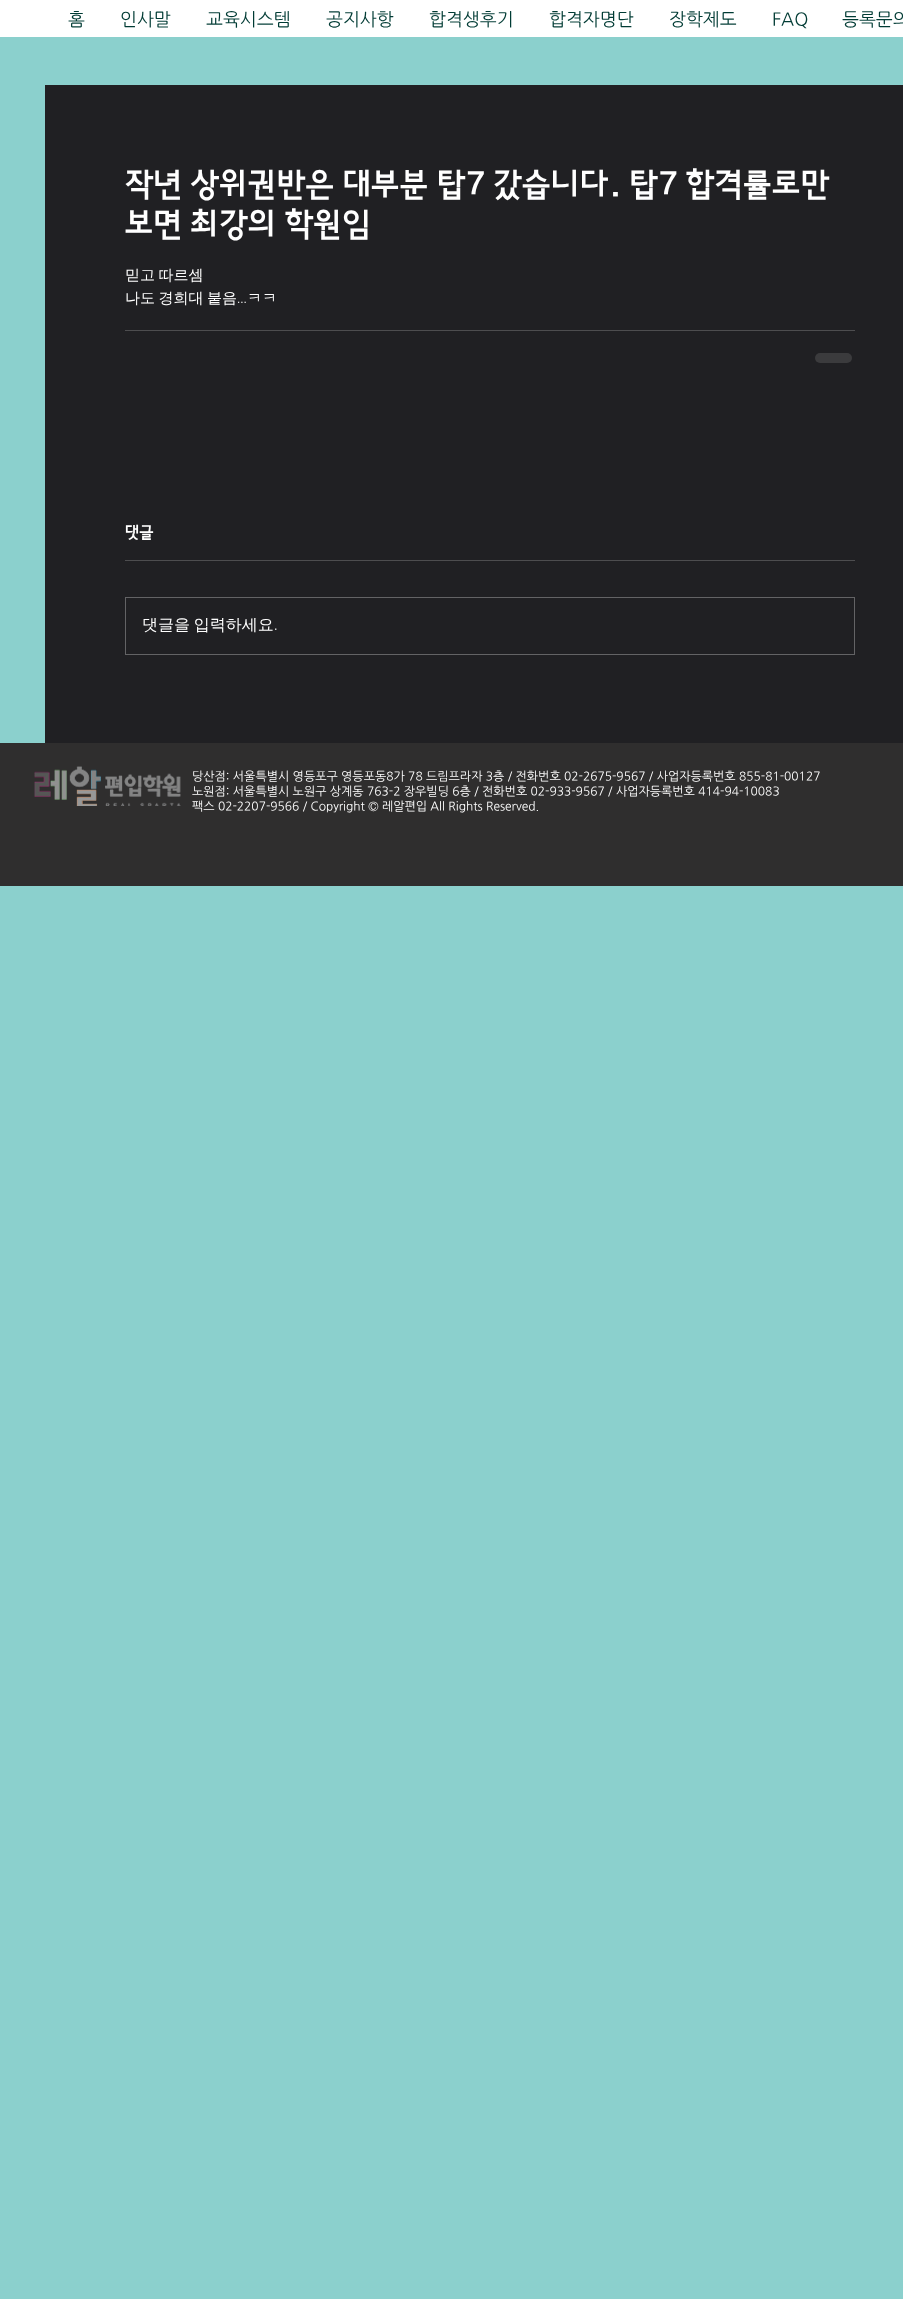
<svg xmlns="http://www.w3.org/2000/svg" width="903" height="2299">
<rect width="100%" height="100%" fill="#8bd0cd"/>
<rect width="903" height="37" fill="#fff"/>
<text x="68" y="25" style="font-family:NanumGothic;font-size:18px;fill:#003b34">홈</text>
<text x="120" y="25" style="font-family:NanumGothic;font-size:18px;fill:#003b34">인사말</text>
<text x="206" y="25" style="font-family:NanumGothic;font-size:18px;fill:#003b34">교육시스템</text>
<text x="326" y="25" style="font-family:NanumGothic;font-size:18px;fill:#003b34">공지사항</text>
<text x="429" y="25" style="font-family:NanumGothic;font-size:18px;fill:#003b34">합격생후기</text>
<text x="549" y="25" style="font-family:NanumGothic;font-size:18px;fill:#003b34">합격자명단</text>
<text x="669" y="25" style="font-family:NanumGothic;font-size:18px;fill:#003b34">장학제도</text>
<text x="772" y="25" style="font-family:NanumGothic;font-size:18px;fill:#003b34">FAQ</text>
<text x="842" y="25" style="font-family:NanumGothic;font-size:18px;fill:#003b34">등록문의</text>
<rect x="45" y="85" width="858" height="658" fill="#202023"/>
<text x="125" y="196" style="font-family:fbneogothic;font-size:32px;font-weight:bold;fill:#fff">작년 상위권반은 대부분 탑7 갔습니다. 탑7 합격률로만</text>
<text x="125" y="236" style="font-family:fbneogothic;font-size:32px;font-weight:bold;fill:#fff">보면 최강의 학원임</text>
<text x="125" y="280" word-spacing="-1" style="font-family:WenQuanYi Zen Hei;font-size:15px;font-weight:500;fill:#fff">믿고 따르셈</text>
<text x="125" y="303" word-spacing="-1" style="font-family:WenQuanYi Zen Hei;font-size:15px;font-weight:500;fill:#fff">나도 경희대 붙음</text>
<text x="237" y="303" style="font-family:'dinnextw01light';font-size:15px;font-weight:300;fill:#fff">...</text>
<text x="247" y="303" style="font-family:WenQuanYi Zen Hei;font-size:15px;font-weight:500;fill:#fff">ㅋㅋ</text>
<rect x="125" y="330" width="730" height="1" fill="#4d4d4f"/>
<rect x="815" y="353" width="37" height="10" rx="5" fill="#3b3b3d"/>
<text x="125" y="538" style="font-family:fbneogothic;font-size:16px;font-weight:bold;fill:#fff">댓글</text>
<rect x="125" y="560" width="730" height="1" fill="#4d4d4f"/>
<rect x="125.5" y="597.5" width="729" height="57" fill="none" stroke="#636365"/>
<text x="142" y="630" word-spacing="-1" style="font-family:WenQuanYi Zen Hei;font-size:16px;font-weight:500;fill:#fff">댓글을 입력하세요</text>
<text x="274" y="630" style="font-family:'dinnextw01light';font-size:16px;font-weight:300;fill:#fff">.</text>
<rect y="743" width="903" height="143" fill="#2f2e2e"/>
<image x="34" y="766" width="147" height="40" href="media/1.png"/>
<text x="192" y="780" style="font-family:NanumGothic;font-size:12px;fill:#fff">당산점: 서울특별시 영등포구 영등포동8가 78 드림프라자 3층 / 전화번호 02-2675-9567 / 사업자등록번호 855-81-00127</text>
<text x="192" y="795" style="font-family:NanumGothic;font-size:12px;fill:#fff">노원점: 서울특별시 노원구 상계동 763-2 장우빌딩 6층 / 전화번호 02-933-9567 / 사업자등록번호 414-94-10083</text>
<text x="192" y="810" style="font-family:NanumGothic;font-size:12px;fill:#fff">팩스 02-2207-9566 / Copyright © 레알편입 All Rights Reserved.</text>
</svg>
